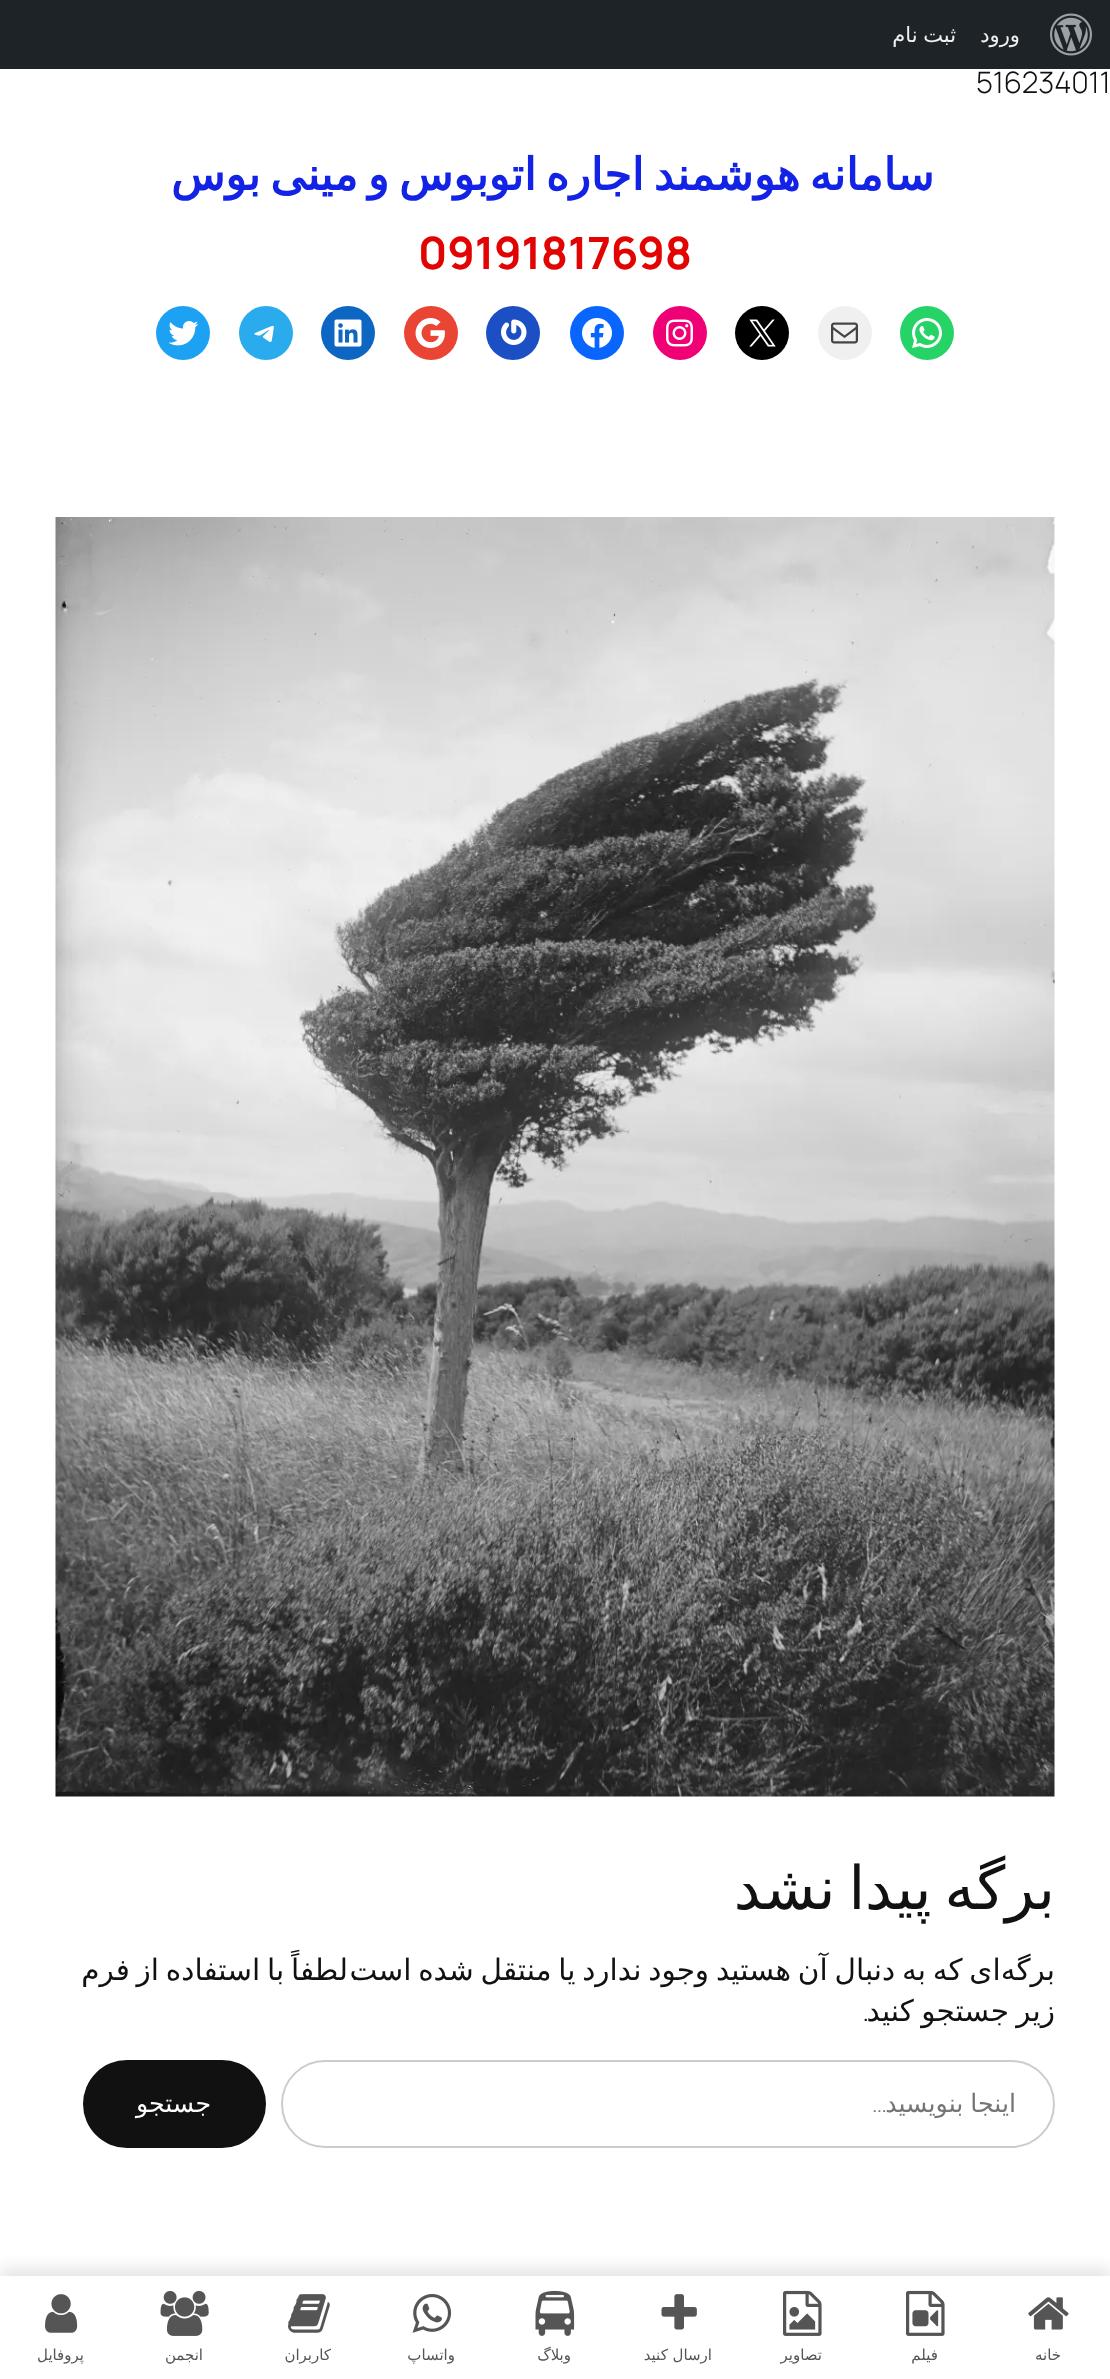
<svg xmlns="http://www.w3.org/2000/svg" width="1110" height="2379">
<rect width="100%" height="100%" fill="#fff"/>
<rect width="1110" height="69" fill="#1d2327"/>
<image x="1050" y="13" width="42" height="43" href="media/1.png"/>
<text x="1020" y="42" style="font-family:DejaVu Sans;font-size:21px;direction:rtl;fill:#f0f0f1">ورود</text>
<text x="956" y="42" word-spacing="-1" style="font-family:DejaVu Sans;font-size:21px;direction:rtl;fill:#f0f0f1">ثبت نام</text>
<text x="976" y="93" style="font-family:Manrope;font-size:29.5px;font-weight:300;letter-spacing:-0.15px;fill:#111">516234011</text>
<text x="934" y="190" word-spacing="-4.5" style="font-family:DejaVu Sans;font-size:44.5px;font-weight:bold;letter-spacing:-0.15px;direction:rtl;fill:#1223e6">سامانه هوشمند اجاره اتوبوس و مینی بوس</text>
<text x="418" y="269" style="font-family:Manrope;font-size:44.5px;font-weight:bold;letter-spacing:-0.15px;fill:#e20303">09191817698</text>
<circle cx="927" cy="333" r="27" fill="#25d366"/>
<image x="912" y="318" width="30" height="30" href="media/2.png"/>
<circle cx="845" cy="333" r="27" fill="#f0f0f0"/>
<image x="831" y="322" width="27" height="22" href="media/3.png"/>
<circle cx="762" cy="333" r="27" fill="#000"/>
<image x="749" y="319" width="27" height="28" href="media/4.png"/>
<circle cx="680" cy="333" r="27" fill="#f00075"/>
<image x="666" y="319" width="27" height="28" href="media/5.png"/>
<circle cx="597" cy="333" r="27" fill="#0866ff"/>
<image x="582" y="318" width="30" height="30" href="media/6.png"/>
<circle cx="513" cy="333" r="27" fill="#1d4fc4"/>
<image x="501" y="319" width="26" height="26" href="media/7.png"/>
<circle cx="431" cy="333" r="27" fill="#ea4434"/>
<image x="415" y="318" width="30" height="30" href="media/8.png"/>
<circle cx="348" cy="333" r="27" fill="#0d66c2"/>
<image x="334" y="319" width="28" height="28" href="media/9.png"/>
<circle cx="266" cy="333" r="27" fill="#2aabee"/>
<image x="254" y="325" width="20" height="17" href="media/10.png"/>
<circle cx="183" cy="333" r="27" fill="#1da1f2"/>
<image x="168" y="321" width="31" height="25" href="media/11.png"/>
<image x="55" y="517" width="1000" height="1280" href="media/12.png"/>
<text x="1055" y="1909" word-spacing="-6" style="font-family:DejaVu Sans;font-size:60px;letter-spacing:-0.15px;direction:rtl;fill:#111">برگه پیدا نشد</text>
<text x="1055" y="1980" word-spacing="-2.6" style="font-family:DejaVu Sans;font-size:29.5px;letter-spacing:-0.15px;direction:rtl;fill:#111">برگه‌ای که به دنبال آن هستید وجود ندارد یا منتقل شده است</text>
<text x="358" y="1980" style="font-family:Manrope;font-size:29.5px;font-weight:300;letter-spacing:-0.15px;direction:rtl;fill:#111">.</text>
<text x="348" y="1980" word-spacing="-2.6" style="font-family:DejaVu Sans;font-size:29.5px;letter-spacing:-0.15px;direction:rtl;fill:#111">لطفاً با استفاده از فرم</text>
<text x="1055" y="2021" word-spacing="-2" style="font-family:DejaVu Sans;font-size:29.5px;letter-spacing:-0.15px;direction:rtl;fill:#111">زیر جستجو کنید</text>
<text x="869" y="2021" style="font-family:Manrope;font-size:29.5px;font-weight:300;letter-spacing:-0.15px;direction:rtl;fill:#111">.</text>
<rect x="282" y="2061" width="772" height="86" rx="43" fill="none" stroke="#ccc" stroke-width="2"/>
<text x="1016" y="2112" word-spacing="-1" style="font-family:DejaVu Sans;font-size:25.25px;letter-spacing:-0.15px;direction:rtl;fill:#757575">اینجا بنویسید</text>
<text x="887" y="2112" style="font-family:Manrope;font-size:25.25px;font-weight:300;letter-spacing:-0.15px;direction:rtl;fill:#757575">…</text>
<rect x="83" y="2060" width="183" height="88" rx="44" fill="#111"/>
<text x="211" y="2112" style="font-family:DejaVu Sans;font-size:25.25px;letter-spacing:-0.15px;direction:rtl;fill:#fff">جستجو</text>
<rect y="2268" width="1110" height="104" fill="#0000001a" filter="blur(7.5px)"/>
<rect y="2276" width="1110" height="103" fill="#fff"/>
<image x="1028" y="2297" width="41" height="33" href="media/13.png"/>
<text x="1061" y="2360" style="font-family:DejaVu Sans;font-size:15px;letter-spacing:-0.15px;direction:rtl;fill:#555">خانه</text>
<image x="906" y="2290" width="39" height="46" href="media/14.png"/>
<text x="938" y="2360" style="font-family:DejaVu Sans;font-size:15px;letter-spacing:-0.15px;direction:rtl;fill:#555">فیلم</text>
<image x="783" y="2290" width="39" height="46" href="media/15.png"/>
<text x="822" y="2360" style="font-family:DejaVu Sans;font-size:15px;letter-spacing:-0.15px;direction:rtl;fill:#555">تصاویر</text>
<image x="661" y="2294" width="36" height="36" href="media/16.png"/>
<text x="712" y="2360" style="font-family:DejaVu Sans;font-size:15px;letter-spacing:-0.15px;direction:rtl;fill:#555">ارسال کنید</text>
<image x="535" y="2290" width="40" height="46" href="media/17.png"/>
<text x="571" y="2360" style="font-family:DejaVu Sans;font-size:15px;letter-spacing:-0.15px;direction:rtl;fill:#555">وبلاگ</text>
<image x="412" y="2294" width="40" height="39" href="media/18.png"/>
<text x="455" y="2360" style="font-family:DejaVu Sans;font-size:15px;letter-spacing:-0.15px;direction:rtl;fill:#555">واتساپ</text>
<image x="288" y="2294" width="42" height="39" href="media/19.png"/>
<text x="331" y="2360" style="font-family:DejaVu Sans;font-size:15px;letter-spacing:-0.15px;direction:rtl;fill:#555">کاربران</text>
<image x="160" y="2290" width="49" height="46" href="media/20.png"/>
<text x="203" y="2360" style="font-family:DejaVu Sans;font-size:15px;letter-spacing:-0.15px;direction:rtl;fill:#555">انجمن</text>
<image x="45" y="2294" width="33" height="39" href="media/21.png"/>
<text x="84" y="2360" style="font-family:DejaVu Sans;font-size:15px;letter-spacing:-0.15px;direction:rtl;fill:#555">پروفایل</text>
</svg>
